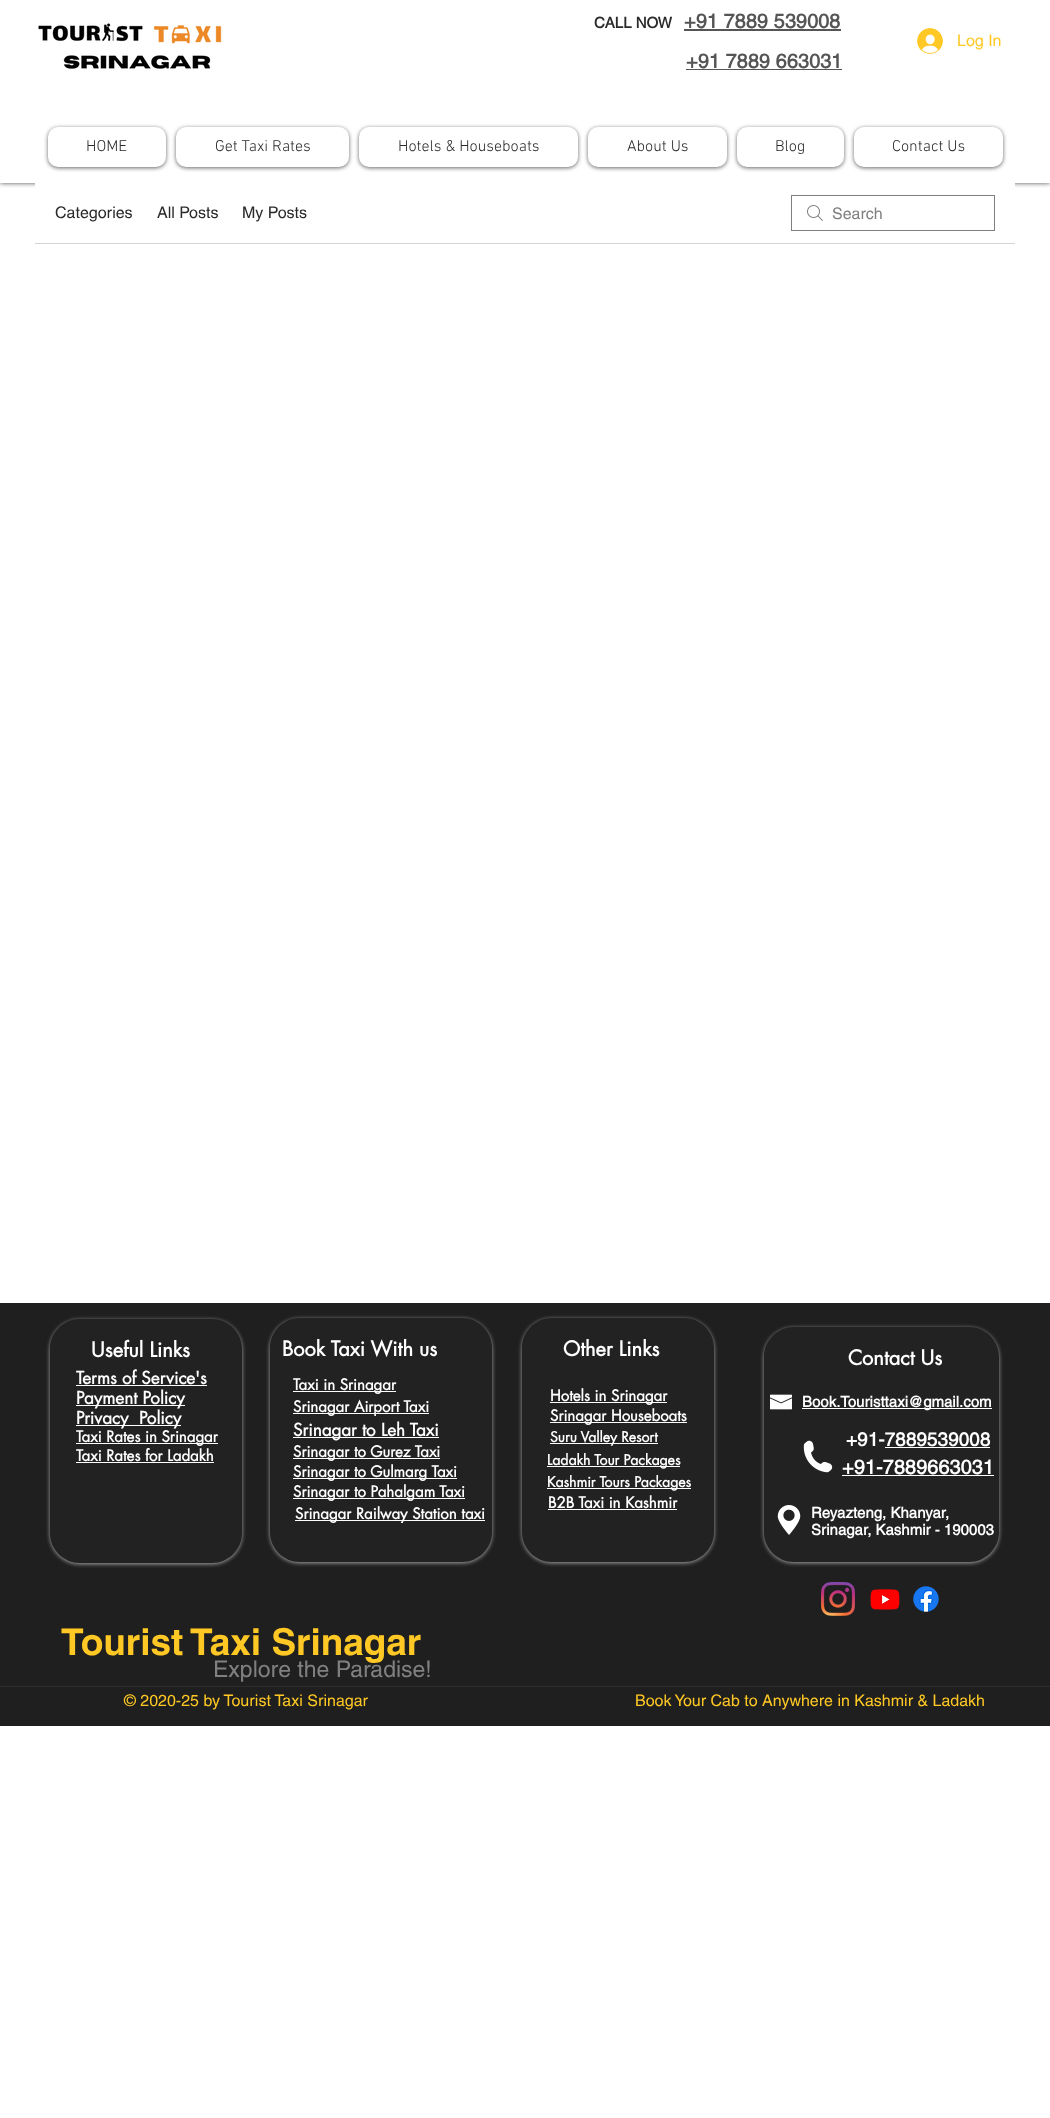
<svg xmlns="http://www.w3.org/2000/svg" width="1050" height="2118">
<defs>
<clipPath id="clip1"><rect x="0" y="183" width="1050" height="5"/></clipPath>
<clipPath id="clip2"><path d="M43 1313h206v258h-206zm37 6h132c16.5 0 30 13.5 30 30v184c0 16.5-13.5 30-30 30h-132c-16.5 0-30-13.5-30-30v-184c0-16.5 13.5-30 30-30z" clip-rule="evenodd"/></clipPath>
<clipPath id="clip3"><path d="M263 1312h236v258h-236zm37 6h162c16.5 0 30 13.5 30 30v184c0 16.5-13.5 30-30 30h-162c-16.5 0-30-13.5-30-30v-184c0-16.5 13.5-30 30-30z" clip-rule="evenodd"/></clipPath>
<clipPath id="clip4"><path d="M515 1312h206v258h-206zm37 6h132c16.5 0 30 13.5 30 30v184c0 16.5-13.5 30-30 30h-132c-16.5 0-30-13.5-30-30v-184c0-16.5 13.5-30 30-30z" clip-rule="evenodd"/></clipPath>
<clipPath id="clip5"><path d="M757 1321h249v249h-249zm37 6h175c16.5 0 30 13.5 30 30v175c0 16.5-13.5 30-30 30h-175c-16.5 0-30-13.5-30-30v-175c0-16.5 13.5-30 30-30z" clip-rule="evenodd"/></clipPath>
</defs>
<rect width="100%" height="100%" fill="#fff"/>
<g clip-path="url(#clip1)">
<rect width="1050" height="183" fill="#000000b3" filter="blur(2.5px)"/>
</g>
<image x="38" y="23" width="184" height="46" href="media/1.png"/>
<text x="594" y="28" style="font-family:helvetica;font-size:15px;font-weight:bold;fill:#2a2a2a">CALL NOW</text>
<text x="684" y="28" style="font-family:helvetica;font-size:20px;font-weight:bold;fill:#555">+91 7889 539008</text>
<rect x="684" y="29" width="157" height="2" fill="#555"/>
<text x="686" y="68" style="font-family:helvetica;font-size:20px;font-weight:bold;fill:#555">+91 7889 663031</text>
<rect x="686" y="69" width="156" height="1" fill="#555"/>
<image x="917" y="28" width="26" height="26" href="media/2.png"/>
<text x="957" y="46" style="font-family:helvetica;font-size:16px;fill:#ffc824">Log In</text>
<rect x="48" y="128" width="118" height="40" rx="10" fill="#00000099" filter="blur(2px)"/>
<rect x="48" y="127" width="118" height="40" rx="10" fill="#fff"/>
<text x="86" y="151" style="font-family:'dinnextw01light';font-size:16px;font-weight:300;fill:#2a2a2a">HOME</text>
<rect x="176" y="128" width="173" height="40" rx="10" fill="#00000099" filter="blur(2px)"/>
<rect x="176" y="127" width="173" height="40" rx="10" fill="#fff"/>
<text x="215" y="151" style="font-family:'dinnextw01light';font-size:16px;font-weight:300;fill:#2a2a2a">Get Taxi Rates</text>
<rect x="359" y="128" width="219" height="40" rx="10" fill="#00000099" filter="blur(2px)"/>
<rect x="359" y="127" width="219" height="40" rx="10" fill="#fff"/>
<text x="398" y="151" style="font-family:'dinnextw01light';font-size:16px;font-weight:300;fill:#2a2a2a">Hotels &amp; Houseboats</text>
<rect x="588" y="128" width="139" height="40" rx="10" fill="#00000099" filter="blur(2px)"/>
<rect x="588" y="127" width="139" height="40" rx="10" fill="#fff"/>
<text x="627" y="151" style="font-family:'dinnextw01light';font-size:16px;font-weight:300;fill:#2a2a2a">About Us</text>
<rect x="737" y="128" width="107" height="40" rx="10" fill="#00000099" filter="blur(2px)"/>
<rect x="737" y="127" width="107" height="40" rx="10" fill="#fff"/>
<text x="775" y="151" style="font-family:'dinnextw01light';font-size:16px;font-weight:300;fill:#2a2a2a">Blog</text>
<rect x="854" y="128" width="149" height="40" rx="10" fill="#00000099" filter="blur(2px)"/>
<rect x="854" y="127" width="149" height="40" rx="10" fill="#fff"/>
<text x="892" y="151" style="font-family:'dinnextw01light';font-size:16px;font-weight:300;fill:#2a2a2a">Contact Us</text>
<rect x="35" y="183" width="980" height="5" fill="#fff"/>
<rect x="35" y="243" width="980" height="1" fill="#d4d4d4"/>
<text x="55" y="218" style="font-family:helvetica;font-size:16px;fill:#2a2a2a">Categories</text>
<text x="157" y="218" style="font-family:helvetica;font-size:16px;fill:#2a2a2a">All Posts</text>
<text x="242" y="218" style="font-family:helvetica;font-size:16px;fill:#2a2a2a">My Posts</text>
<image x="807" y="205" width="16" height="16" href="media/3.png"/>
<rect x="791.5" y="195.5" width="203" height="35" fill="none" stroke="#7f7f7f"/>
<text x="832" y="219" style="font-family:helvetica;font-size:16px;fill:#808080">Search</text>
<rect y="1303" width="1050" height="423" fill="#1f1f1f"/>
<g clip-path="url(#clip2)">
<rect x="50" y="1320" width="192" height="244" rx="30" fill="#ffffff99" filter="blur(2px)"/>
</g>
<rect x="50" y="1319" width="192" height="244" rx="30" fill="#2a2a2a4d"/>
<text x="91" y="1357" style="font-family:futura;font-size:20px;font-weight:bold;fill:#fff">Useful Links</text>
<text x="76" y="1384" style="font-family:futura;font-size:17px;font-weight:bold;fill:#fff">Terms of Service's</text>
<rect x="76" y="1385" width="131" height="1" fill="#fff"/>
<rect x="76" y="1405" width="109" height="1" fill="#fff"/>
<text x="76" y="1404" style="font-family:futura;font-size:17px;font-weight:bold;fill:#fff">Payment Policy</text>
<rect x="76" y="1425" width="105" height="1" fill="#fff"/>
<text x="76" y="1424" style="font-family:futura;font-size:17px;font-weight:bold;fill:#fff" xml:space="preserve">Privacy  Policy</text>
<rect x="76" y="1443" width="142" height="1" fill="#fff"/>
<text x="76" y="1442" style="font-family:futura;font-size:15px;font-weight:bold;fill:#fff">Taxi Rates in Srinagar</text>
<text x="76" y="1461" style="font-family:futura;font-size:15px;font-weight:bold;fill:#fff">Taxi Rates for Ladakh</text>
<rect x="76" y="1462" width="138" height="1" fill="#fff"/>
<g clip-path="url(#clip3)">
<rect x="270" y="1319" width="222" height="244" rx="30" fill="#ffffff99" filter="blur(2px)"/>
</g>
<rect x="270" y="1318" width="222" height="244" rx="30" fill="#2a2a2a4d"/>
<text x="282" y="1356" style="font-family:futura;font-size:20px;font-weight:bold;fill:#fff">Book Taxi With us</text>
<rect x="293" y="1391" width="103" height="1" fill="#fff"/>
<text x="293" y="1390" style="font-family:futura;font-size:15px;font-weight:bold;fill:#fff">Taxi in Srinagar</text>
<rect x="293" y="1413" width="136" height="1" fill="#fff"/>
<text x="293" y="1412" style="font-family:futura;font-size:15px;font-weight:bold;fill:#fff">Srinagar Airport Taxi</text>
<rect x="293" y="1437" width="146" height="1" fill="#fff"/>
<text x="293" y="1436" style="font-family:futura;font-size:17px;font-weight:bold;fill:#fff">Srinagar to Leh Taxi</text>
<rect x="293" y="1458" width="147" height="1" fill="#fff"/>
<text x="293" y="1457" style="font-family:futura;font-size:15px;font-weight:bold;fill:#fff">Srinagar to Gurez Taxi</text>
<rect x="293" y="1478" width="164" height="1" fill="#fff"/>
<text x="293" y="1477" style="font-family:futura;font-size:15px;font-weight:bold;fill:#fff">Srinagar to Gulmarg Taxi</text>
<rect x="293" y="1498" width="172" height="1" fill="#fff"/>
<text x="293" y="1497" style="font-family:futura;font-size:15px;font-weight:bold;fill:#fff">Srinagar to Pahalgam Taxi</text>
<rect x="295" y="1520" width="190" height="1" fill="#fff"/>
<text x="295" y="1519" style="font-family:futura;font-size:15px;font-weight:bold;fill:#fff">Srinagar Railway Station taxi</text>
<g clip-path="url(#clip4)">
<rect x="522" y="1319" width="192" height="244" rx="30" fill="#ffffff99" filter="blur(2px)"/>
</g>
<rect x="522" y="1318" width="192" height="244" rx="30" fill="#2a2a2a4d"/>
<text x="563" y="1356" style="font-family:futura;font-size:20px;font-weight:bold;fill:#fff">Other Links</text>
<rect x="550" y="1402" width="117" height="1" fill="#fff"/>
<text x="550" y="1401" style="font-family:futura;font-size:15px;font-weight:bold;fill:#fff">Hotels in Srinagar</text>
<rect x="550" y="1422" width="137" height="1" fill="#fff"/>
<text x="550" y="1421" style="font-family:futura;font-size:15px;font-weight:bold;fill:#fff">Srinagar Houseboats</text>
<rect x="550" y="1443" width="108" height="1" fill="#fff"/>
<text x="550" y="1442" style="font-family:futura;font-size:14px;font-weight:bold;fill:#fff">Suru Valley Resort</text>
<rect x="547" y="1466" width="133" height="1" fill="#fff"/>
<text x="547" y="1465" style="font-family:futura;font-size:14px;font-weight:bold;fill:#fff">Ladakh Tour Packages</text>
<rect x="547" y="1488" width="144" height="1" fill="#fff"/>
<text x="547" y="1487" style="font-family:futura;font-size:14px;font-weight:bold;fill:#fff">Kashmir Tours Packages</text>
<text x="548" y="1508" style="font-family:futura;font-size:15px;font-weight:bold;fill:#fff">B2B Taxi in Kashmir</text>
<rect x="548" y="1509" width="129" height="1" fill="#fff"/>
<g clip-path="url(#clip5)">
<rect x="764" y="1328" width="235" height="235" rx="30" fill="#ffffff99" filter="blur(2px)"/>
</g>
<rect x="764" y="1327" width="235" height="235" rx="30" fill="#2a2a2a4d"/>
<text x="848" y="1365" style="font-family:futura;font-size:20px;font-weight:bold;fill:#fff">Contact Us</text>
<image x="770" y="1394" width="22" height="16" href="media/4.png"/>
<rect x="802" y="1408" width="190" height="1" fill="#fff"/>
<text x="802" y="1407" style="font-family:helvetica;font-size:15px;font-weight:bold;fill:#fff">Book.Touristtaxi@gmail.com</text>
<image x="803" y="1440" width="30" height="33" href="media/5.png"/>
<text x="846" y="1446" style="font-family:helvetica;font-size:19px;font-weight:bold;fill:#fff">+91-7889539008</text>
<rect x="885" y="1447" width="105" height="1" fill="#fff"/>
<text x="842" y="1474" style="font-family:helvetica;font-size:20px;font-weight:bold;fill:#fff">+91-7889663031</text>
<rect x="842" y="1475" width="152" height="1" fill="#fff"/>
<image x="777" y="1505" width="24" height="30" href="media/6.png"/>
<text x="811" y="1518" style="font-family:helvetica;font-size:15px;font-weight:bold;fill:#fff">Reyazteng, Khanyar,</text>
<text x="811" y="1535" style="font-family:helvetica;font-size:15px;font-weight:bold;fill:#fff">Srinagar, Kashmir - 190003</text>
<image x="821" y="1582" width="34" height="34" href="media/7.png"/>
<image x="870" y="1589" width="30" height="21" href="media/8.png"/>
<image x="913" y="1586" width="26" height="26" href="media/9.png"/>
<text x="61" y="1655" style="font-family:'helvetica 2';font-size:37px;font-weight:bold;fill:#ffc824">Tourist Taxi Srinagar</text>
<text x="213" y="1677" style="font-family:helvetica;font-size:23px;fill:#808080">Explore the Paradise!</text>
<rect y="1686" width="1050" height="1" fill="#2e2e2e"/>
<text x="124" y="1706" style="font-family:helvetica;font-size:16px;fill:#ffc824">© 2020-25 by Tourist Taxi Srinagar</text>
<text x="635" y="1706" style="font-family:helvetica;font-size:16px;fill:#ffc824">Book Your Cab to Anywhere in Kashmir &amp; Ladakh</text>
</svg>
